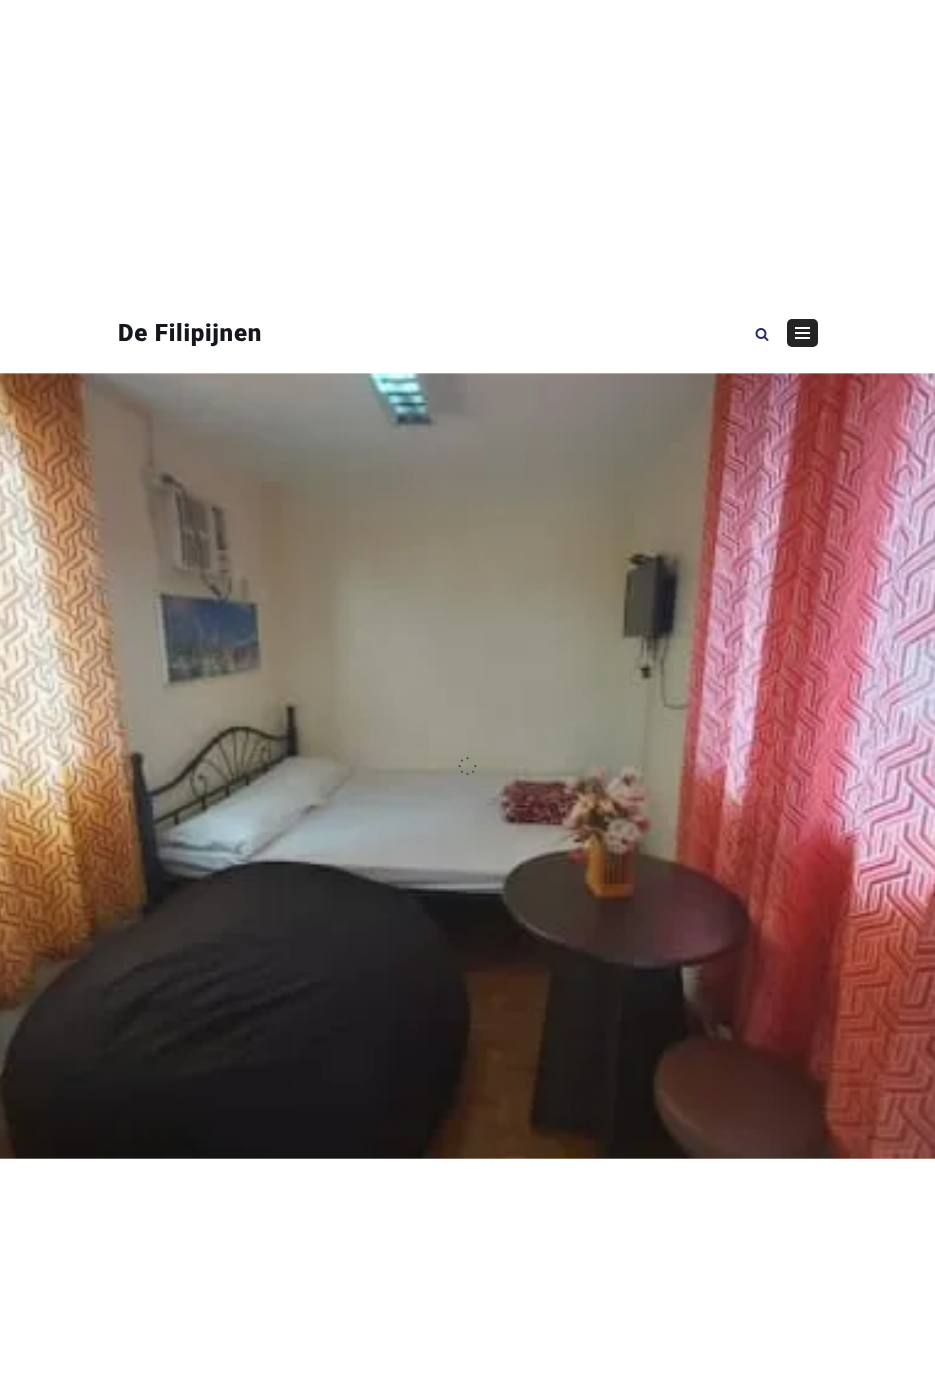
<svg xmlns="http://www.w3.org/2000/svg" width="935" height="1396">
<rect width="100%" height="100%" fill="#fff"/>
<text x="118" y="341" style="font-family:Roboto;font-size:24px;font-weight:900;letter-spacing:0.75px;fill:#14171c">De Filipijnen</text>
<image x="755" y="328" width="14" height="13" href="media/1.png"/>
<rect x="787" y="319" width="31" height="28" rx="5" fill="#242424"/>
<rect x="795" y="327" width="15" height="2" fill="#fff"/>
<rect x="795" y="332" width="15" height="2" fill="#fff"/>
<rect x="795" y="337" width="15" height="2" fill="#fff"/>
<image x="0" y="373" width="935" height="786" href="media/2.png"/>
<image x="458" y="757" width="19" height="19" href="media/3.png"/>
</svg>
